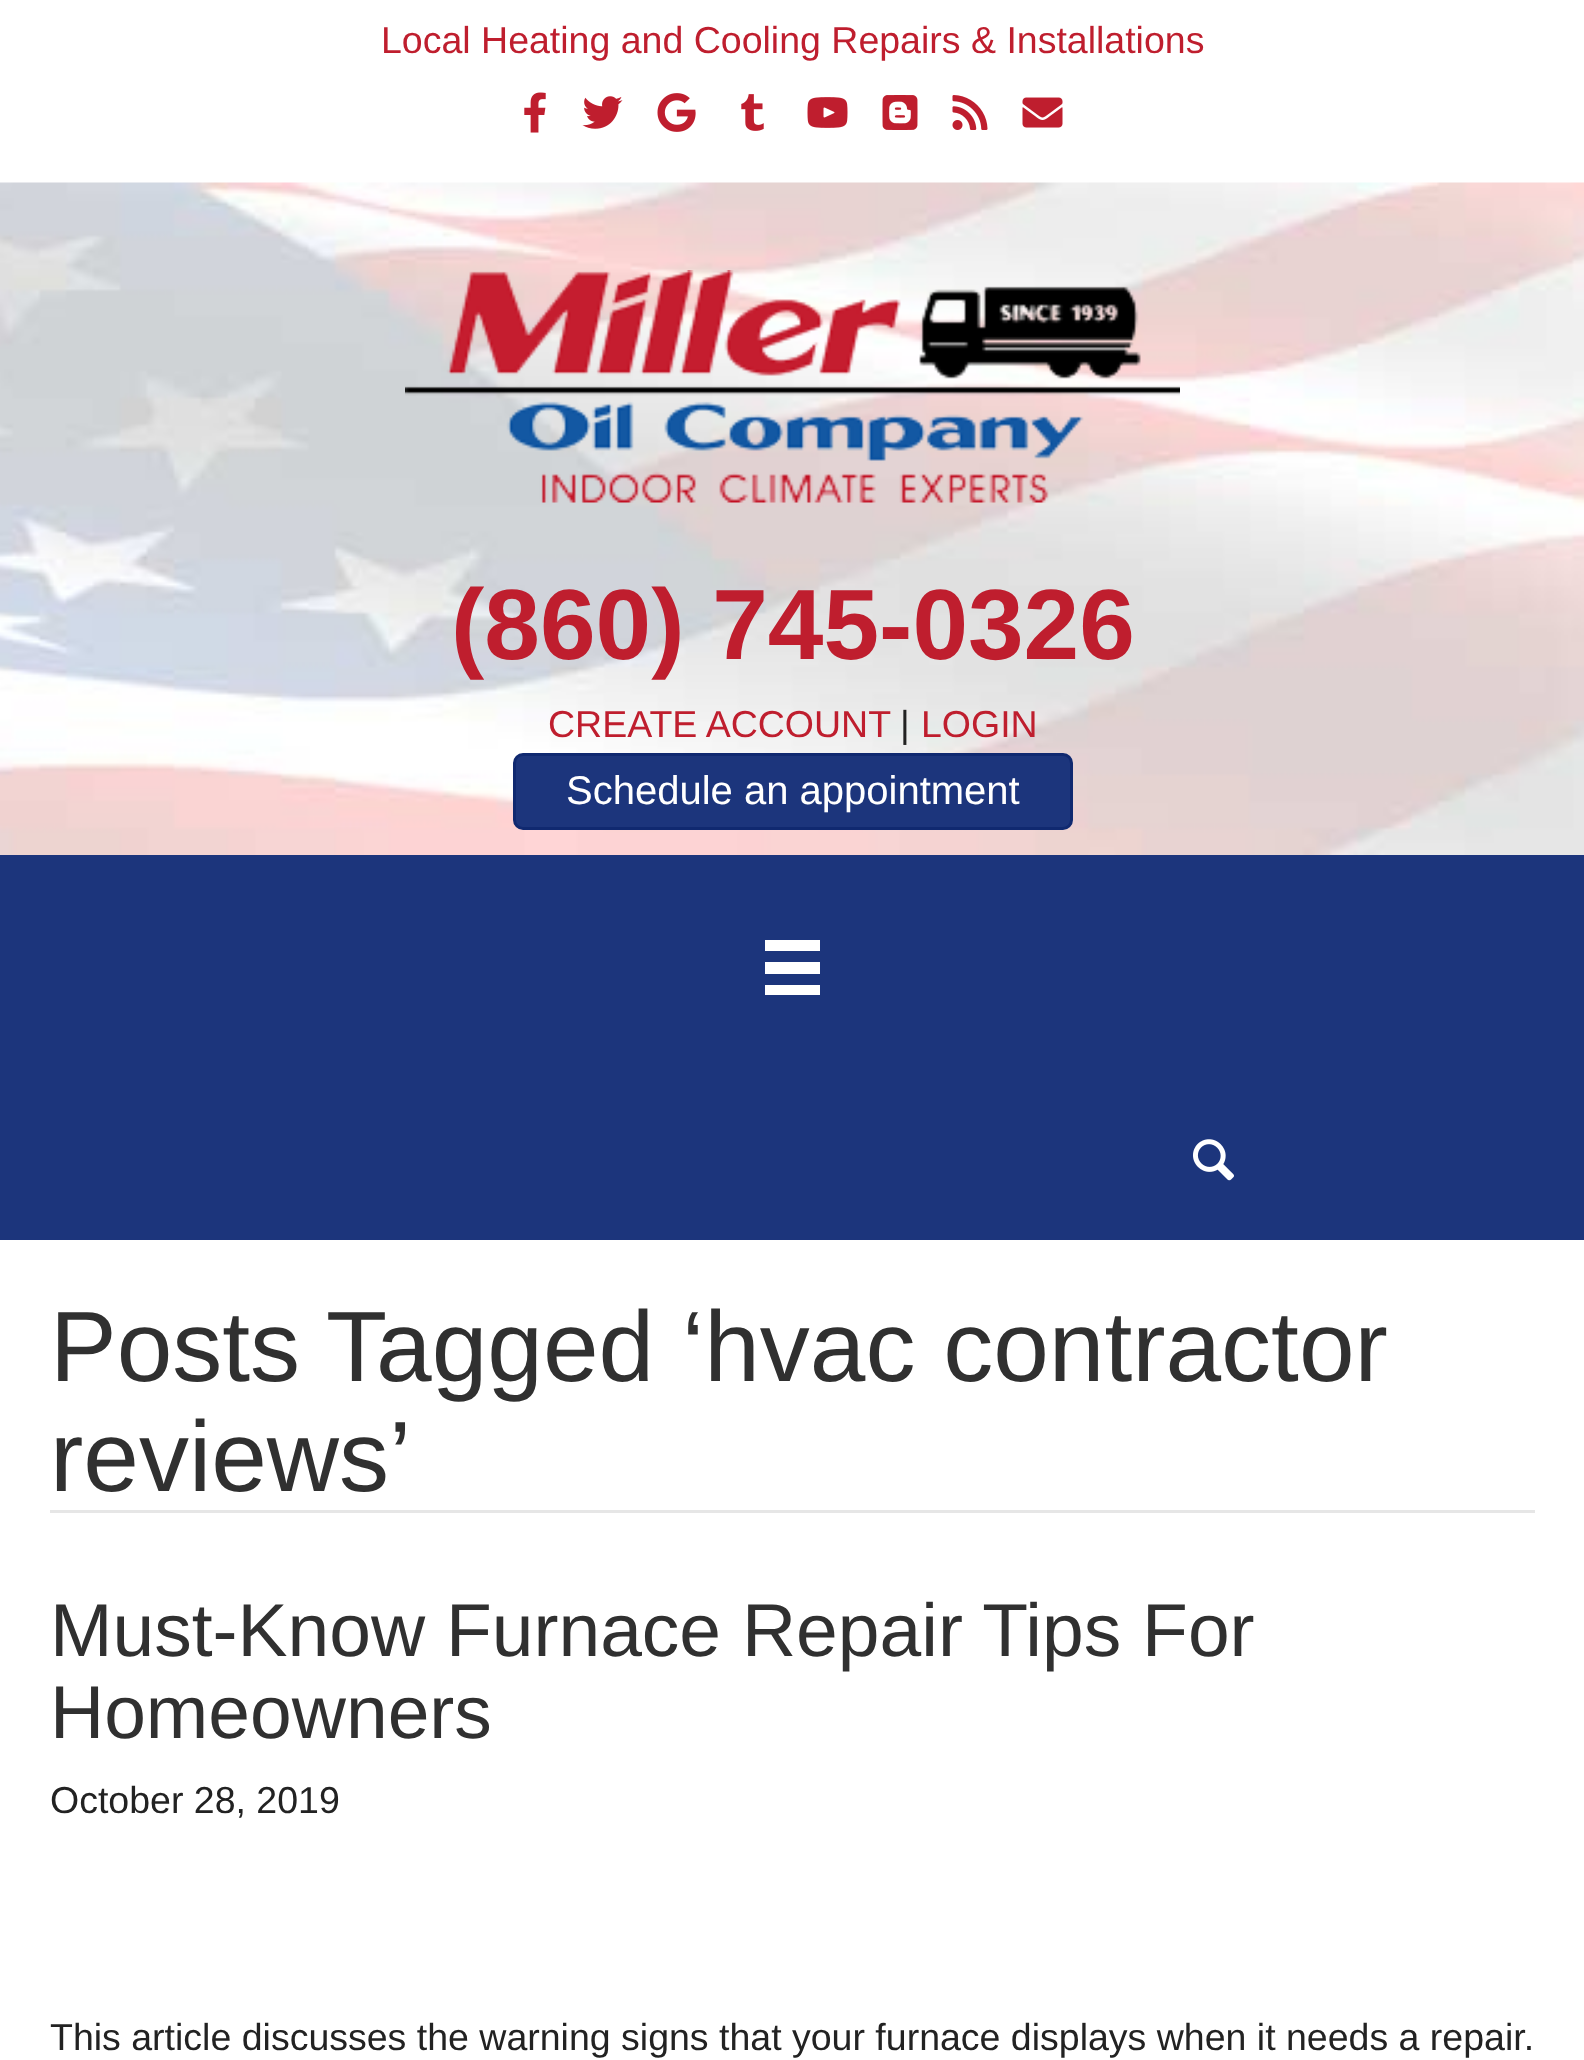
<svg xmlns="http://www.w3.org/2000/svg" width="1584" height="2060">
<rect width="100%" height="100%" fill="#fff"/>
<text x="381" y="53" style="font-family:Liberation Sans;font-size:37.5px;fill:#bf1e2e">Local Heating and Cooling Repairs &amp; Installations</text>
<image x="524" y="92" width="22" height="41" href="media/1.png"/>
<image x="582" y="96" width="41" height="33" href="media/2.png"/>
<image x="657" y="93" width="39" height="39" href="media/3.png"/>
<image x="741" y="94" width="23" height="37" href="media/4.png"/>
<image x="807" y="97" width="41" height="31" href="media/5.png"/>
<image x="882" y="95" width="36" height="35" href="media/6.png"/>
<image x="952" y="95" width="36" height="35" href="media/7.png"/>
<image x="1022" y="97" width="41" height="31" href="media/8.png"/>
<image x="0" y="182" width="1584" height="673" href="media/9.png"/>
<image x="405" y="270" width="775" height="233" href="media/10.png"/>
<text x="451" y="659" style="font-family:Liberation Sans;font-size:100px;font-weight:bold;fill:#bf1e2e">(860) 745-0326</text>
<text x="548" y="737" style="font-family:Liberation Sans;font-size:37.5px;fill:#bf1e2e">CREATE ACCOUNT</text>
<text x="900" y="737" style="font-family:Liberation Sans;font-size:37.5px;fill:#222">|</text>
<text x="921" y="737" style="font-family:Liberation Sans;font-size:37.5px;fill:#bf1e2e">LOGIN</text>
<rect x="514.5" y="754.5" width="557" height="74" rx="8.5" fill="#1c357c" stroke="#102970" stroke-width="3"/>
<text x="566" y="804" style="font-family:Liberation Sans;font-size:40px;fill:#fff">Schedule an appointment</text>
<rect y="855" width="1584" height="385" fill="#1c357c"/>
<rect x="765" y="940" width="55" height="11" fill="#fff"/>
<rect x="765" y="962" width="55" height="12" fill="#fff"/>
<rect x="765" y="985" width="55" height="10" fill="#fff"/>
<image x="1193" y="1139" width="41" height="42" href="media/11.png"/>
<rect x="50" y="1510" width="1485" height="3" fill="#e6e6e6"/>
<text x="50" y="1381" style="font-family:Liberation Sans;font-size:100px;fill:#303030">Posts Tagged ‘hvac contractor</text>
<text x="50" y="1491" style="font-family:Liberation Sans;font-size:100px;fill:#303030">reviews’</text>
<text x="50" y="1656" style="font-family:Liberation Sans;font-size:75px;fill:#303030">Must-Know Furnace Repair Tips For</text>
<text x="50" y="1738" style="font-family:Liberation Sans;font-size:75px;fill:#303030">Homeowners</text>
<text x="50" y="1813" style="font-family:Liberation Sans;font-size:37.5px;fill:#222">October 28, 2019</text>
<text x="50" y="2050" style="font-family:Liberation Sans;font-size:37.5px;fill:#222">This article discusses the warning signs that your furnace displays when it needs a repair.</text>
</svg>
